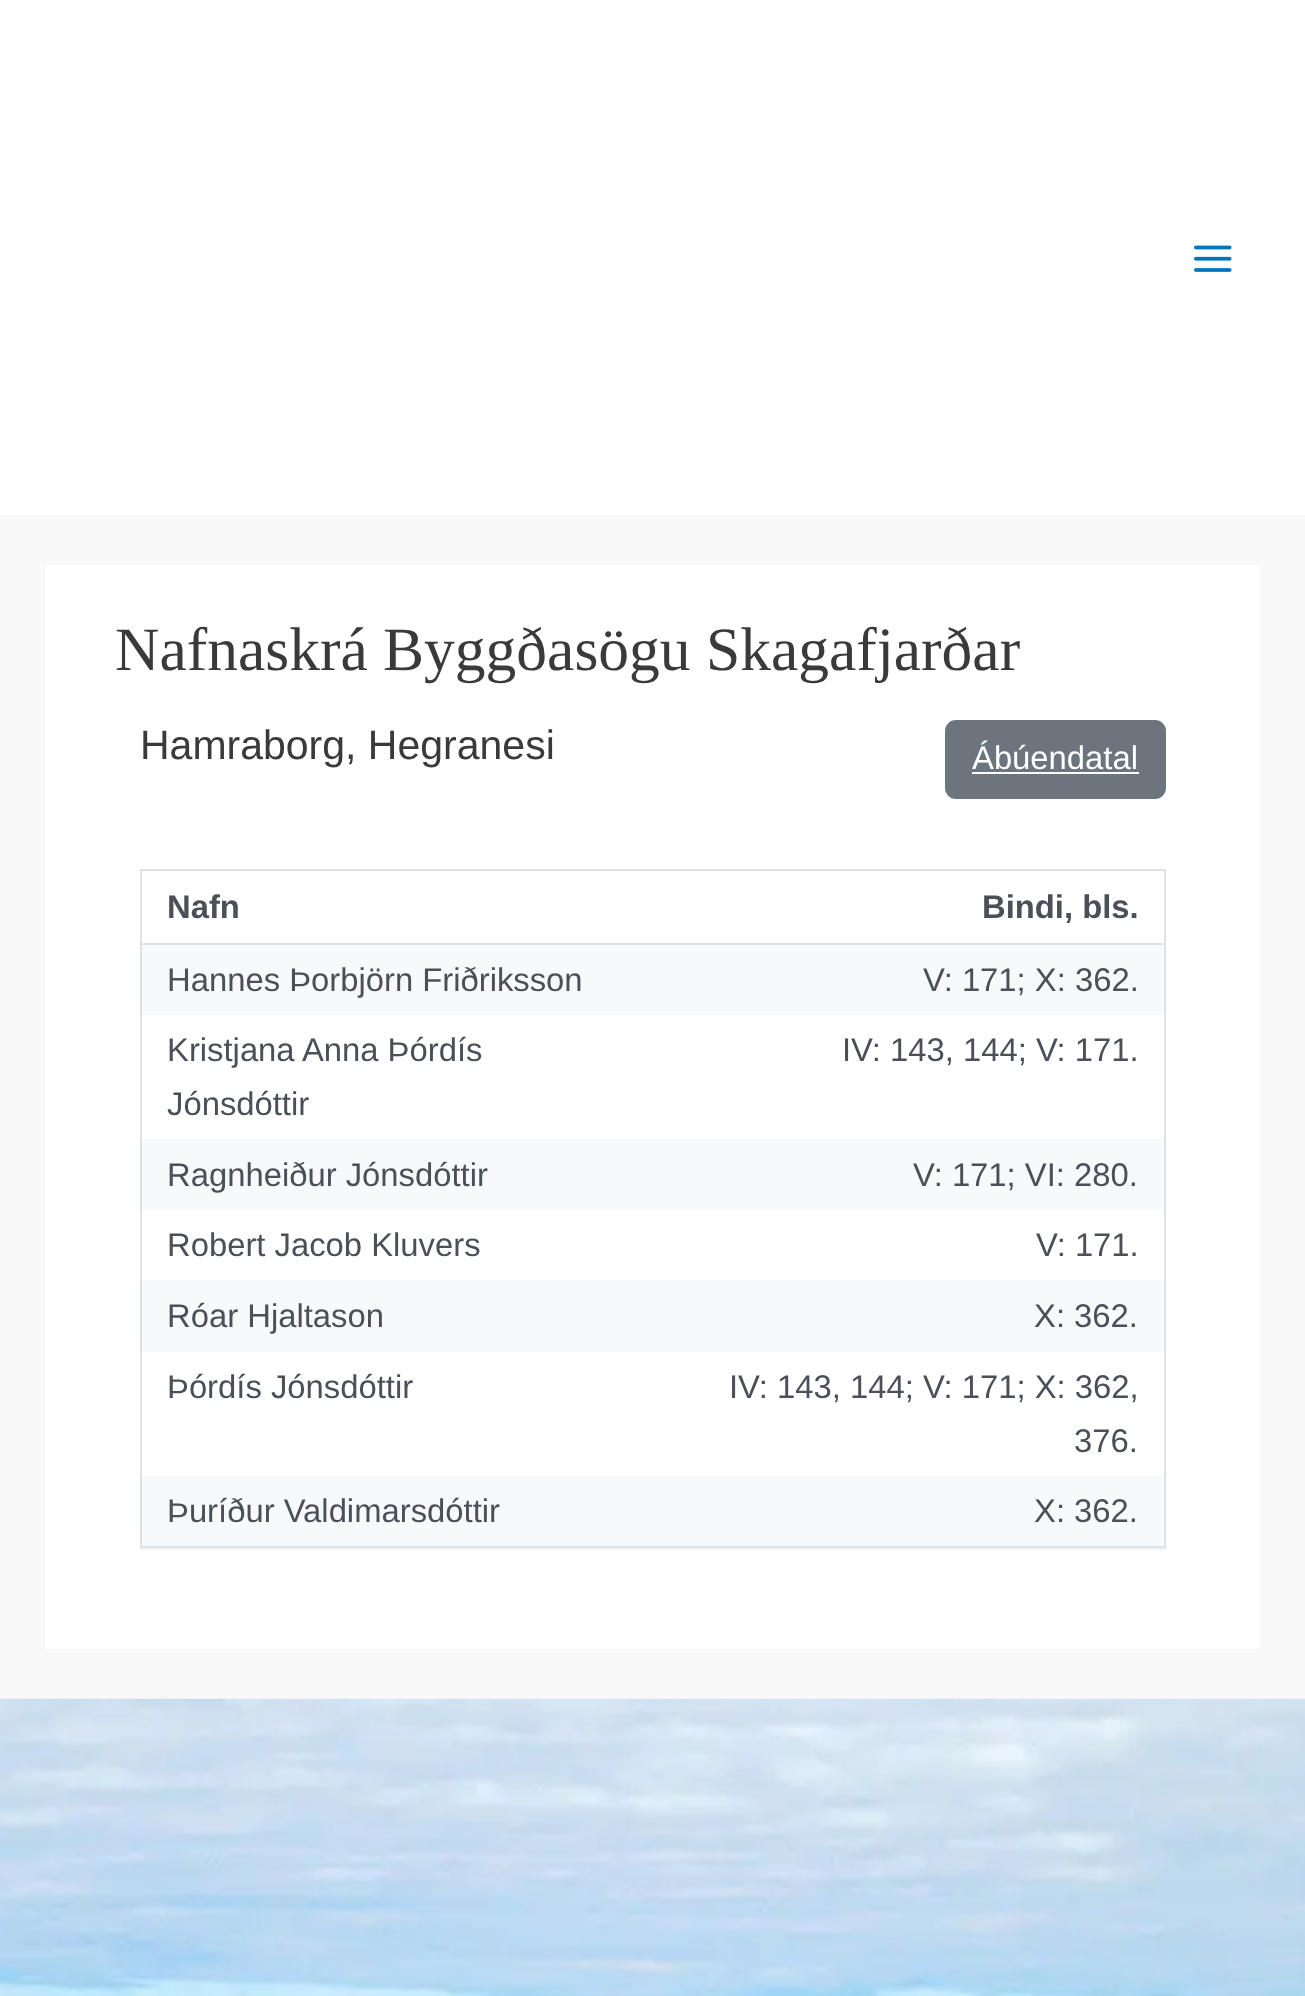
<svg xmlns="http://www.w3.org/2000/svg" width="1305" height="1996">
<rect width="100%" height="100%" fill="#f9f9f9"/>
<rect width="1305" height="515" fill="#fff"/>
<image x="1194" y="245" width="38" height="27" href="media/1.png"/>
<rect x="45" y="565" width="1215" height="1084" fill="#fff"/>
<text x="115" y="670" style="font-family:Liberation Serif;font-size:61.5px;fill:#3a3a3a">Nafnaskrá Byggðasögu Skagafjarðar</text>
<text x="140" y="759" style="font-family:Liberation Sans;font-size:41px;fill:#3a3a3a">Hamraborg, Hegranesi</text>
<rect x="946" y="721" width="219" height="77" rx="10" fill="#6c757d" stroke="#6c757d" stroke-width="2"/>
<text x="972" y="769" style="font-family:Liberation Sans;font-size:32.8px;fill:#fff">Ábúendatal</text>
<rect x="972" y="772" width="167" height="2" fill="#fff"/>
<rect x="141" y="870" width="1024" height="677" fill="none" stroke="#dee2e6" stroke-width="2"/>
<rect x="142" y="943" width="1021" height="2" fill="#dee2e6"/>
<text x="167" y="918" style="font-family:Liberation Sans;font-size:32.8px;font-weight:bold;fill:#4b4f58">Nafn</text>
<text x="982" y="918" style="font-family:Liberation Sans;font-size:32.8px;font-weight:bold;fill:#4b4f58">Bindi, bls.</text>
<rect x="142" y="945" width="1021" height="70" fill="#f8f9fa"/>
<text x="167" y="991" style="font-family:Liberation Sans;font-size:32.8px;fill:#4b4f58">Hannes Þorbjörn Friðriksson</text>
<text x="923" y="991" style="font-family:Liberation Sans;font-size:32.8px;fill:#4b4f58">V: 171; X: 362.</text>
<text x="167" y="1061" style="font-family:Liberation Sans;font-size:32.8px;fill:#4b4f58">Kristjana Anna Þórdís</text>
<text x="167" y="1115" style="font-family:Liberation Sans;font-size:32.8px;fill:#4b4f58">Jónsdóttir</text>
<text x="842" y="1061" style="font-family:Liberation Sans;font-size:32.8px;fill:#4b4f58">IV: 143, 144; V: 171.</text>
<rect x="142" y="1139" width="1021" height="72" fill="#f8f9fa"/>
<text x="167" y="1186" style="font-family:Liberation Sans;font-size:32.8px;fill:#4b4f58">Ragnheiður Jónsdóttir</text>
<text x="913" y="1186" style="font-family:Liberation Sans;font-size:32.8px;fill:#4b4f58">V: 171; VI: 280.</text>
<text x="167" y="1256" style="font-family:Liberation Sans;font-size:32.8px;fill:#4b4f58">Robert Jacob Kluvers</text>
<text x="1036" y="1256" style="font-family:Liberation Sans;font-size:32.8px;fill:#4b4f58">V: 171.</text>
<rect x="142" y="1280" width="1021" height="72" fill="#f8f9fa"/>
<text x="167" y="1327" style="font-family:Liberation Sans;font-size:32.8px;fill:#4b4f58">Róar Hjaltason</text>
<text x="1034" y="1327" style="font-family:Liberation Sans;font-size:32.8px;fill:#4b4f58">X: 362.</text>
<text x="167" y="1398" style="font-family:Liberation Sans;font-size:32.8px;fill:#4b4f58">Þórdís Jónsdóttir</text>
<text x="729" y="1398" style="font-family:Liberation Sans;font-size:32.8px;fill:#4b4f58">IV: 143, 144; V: 171; X: 362,</text>
<text x="1074" y="1452" style="font-family:Liberation Sans;font-size:32.8px;fill:#4b4f58">376.</text>
<rect x="142" y="1476" width="1021" height="70" fill="#f8f9fa"/>
<text x="167" y="1522" style="font-family:Liberation Sans;font-size:32.8px;fill:#4b4f58">Þuríður Valdimarsdóttir</text>
<text x="1034" y="1522" style="font-family:Liberation Sans;font-size:32.8px;fill:#4b4f58">X: 362.</text>
<rect x="140" y="1548" width="1026" height="2" fill="#f2f2f2"/>
<image x="0" y="1698" width="1305" height="298" href="media/2.png"/>
</svg>
